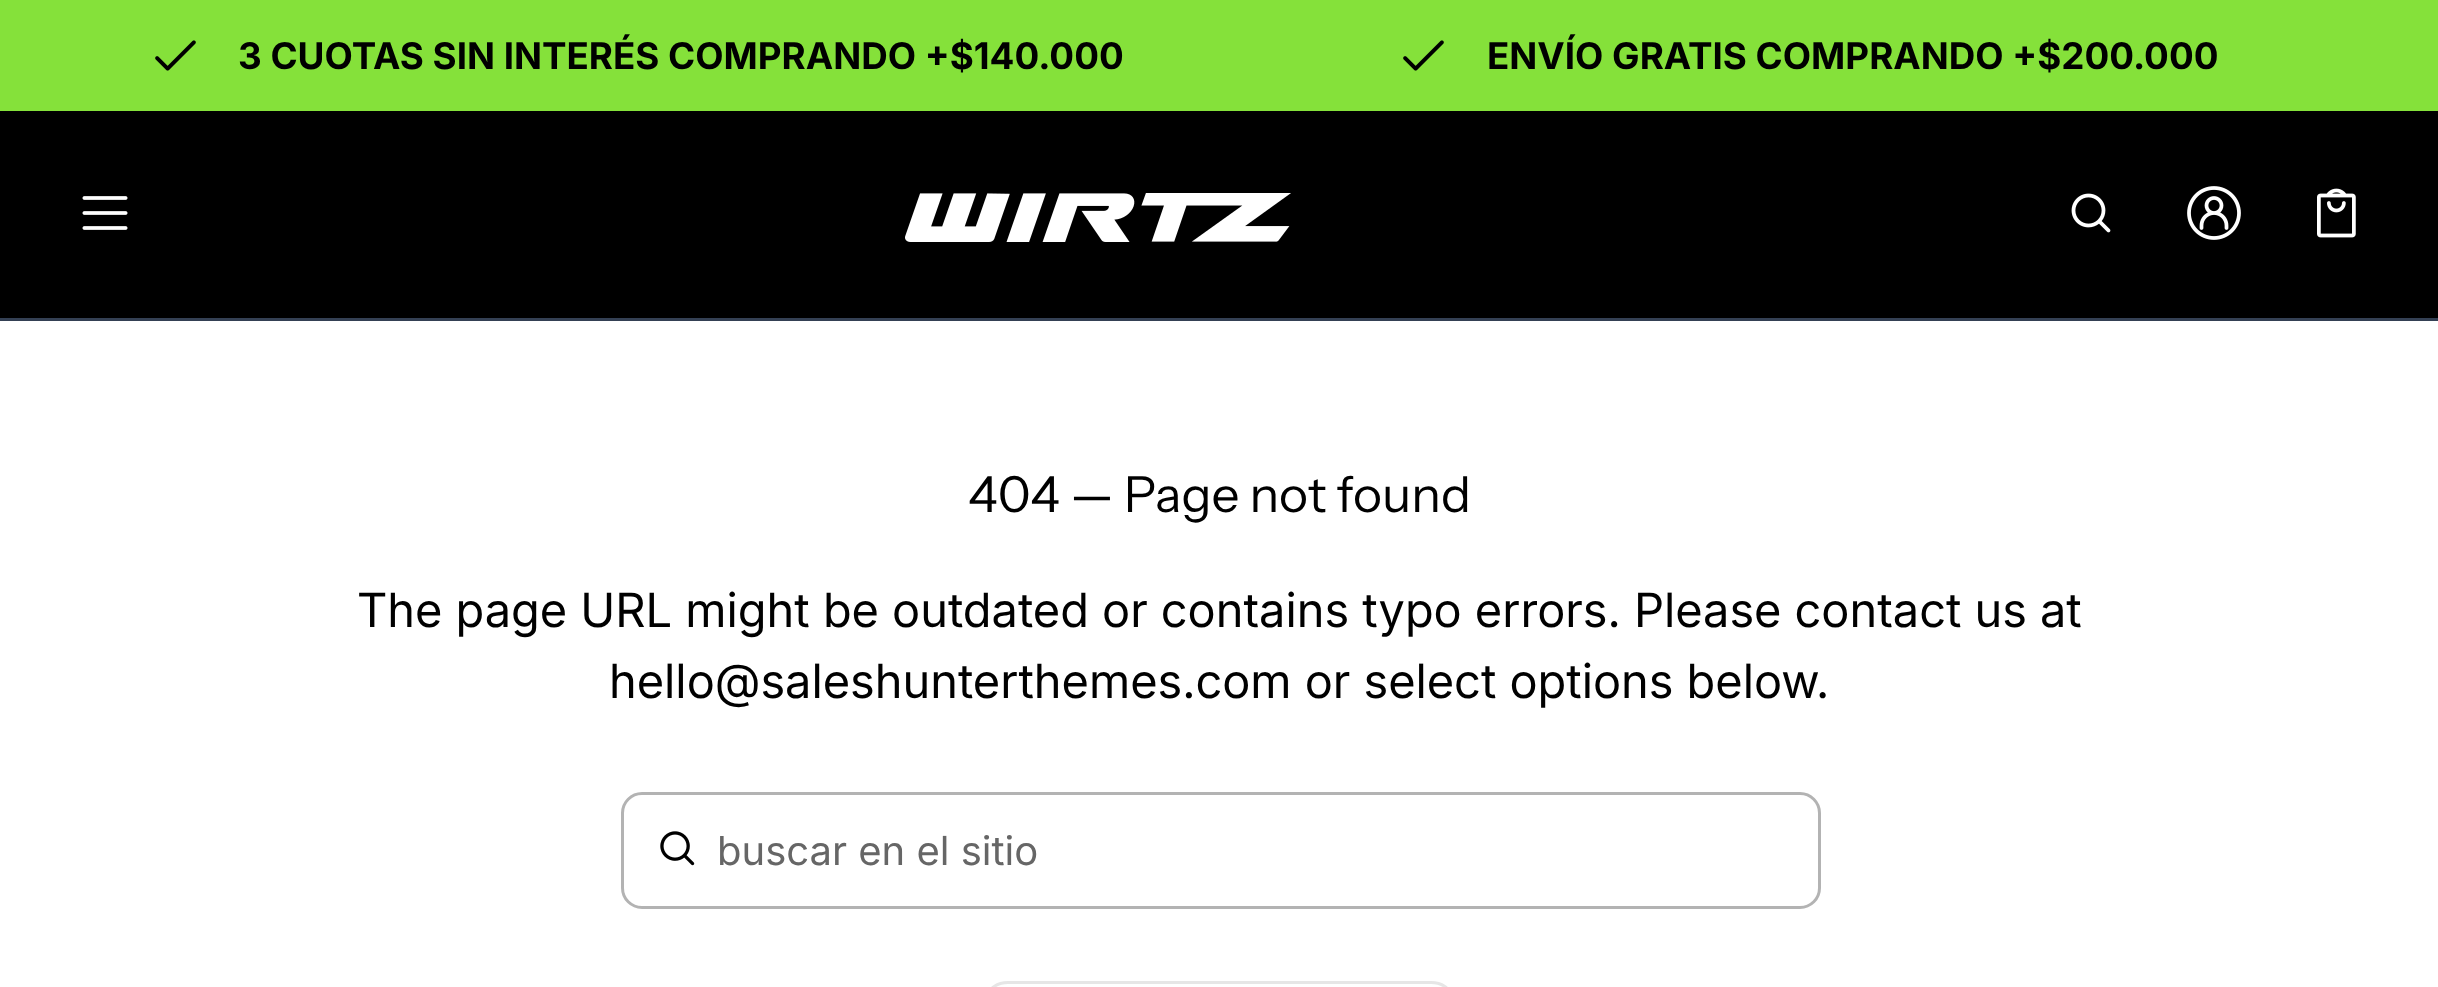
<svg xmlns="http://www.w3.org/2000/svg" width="2438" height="987">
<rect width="100%" height="100%" fill="#fff"/>
<rect width="2438" height="111" fill="#85e13a"/>
<image x="155" y="40" width="41" height="31" href="media/1.png"/>
<text x="238" y="69" style="font-family:Inter;font-size:36.75px;font-weight:bold;fill:#000">3 CUOTAS SIN INTERÉS COMPRANDO +$140.000</text>
<image x="1403" y="40" width="41" height="31" href="media/1.png"/>
<text x="1487" y="69" style="font-family:Inter;font-size:36.75px;font-weight:bold;fill:#000">ENVÍO GRATIS COMPRANDO +$200.000</text>
<rect y="111" width="2438" height="207" fill="#000"/>
<rect y="318" width="2438" height="3" fill="#344054"/>
<image x="82" y="196" width="46" height="34" href="media/2.png"/>
<image x="905" y="193" width="386" height="49" href="media/3.png"/>
<image x="2071" y="193" width="40" height="40" href="media/4.png"/>
<image x="2187" y="186" width="54" height="54" href="media/5.png"/>
<image x="2317" y="188" width="39" height="50" href="media/6.png"/>
<text x="968" y="512" style="font-family:Instrument Sans;font-size:49.6px;fill:#000">404 — Page not found</text>
<text x="357" y="627" style="font-family:Inter;font-size:47.25px;fill:#000">The page URL might be outdated or contains typo errors. Please contact us at</text>
<text x="609" y="698" style="font-family:Inter;font-size:47.25px;fill:#000">hello@saleshunterthemes.com or select options below.</text>
<rect x="622.5" y="793.5" width="1197" height="114" rx="19.5" fill="none" stroke="#b3b3b3" stroke-width="3"/>
<image x="660" y="831" width="35" height="35" href="media/7.png"/>
<text x="717" y="865" style="font-family:'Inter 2';font-size:40px;fill:#666">buscar en el sitio</text>
<rect x="988.5" y="982.5" width="462" height="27" rx="19.5" fill="none" stroke="#e6e6e6" stroke-width="3"/>
</svg>
